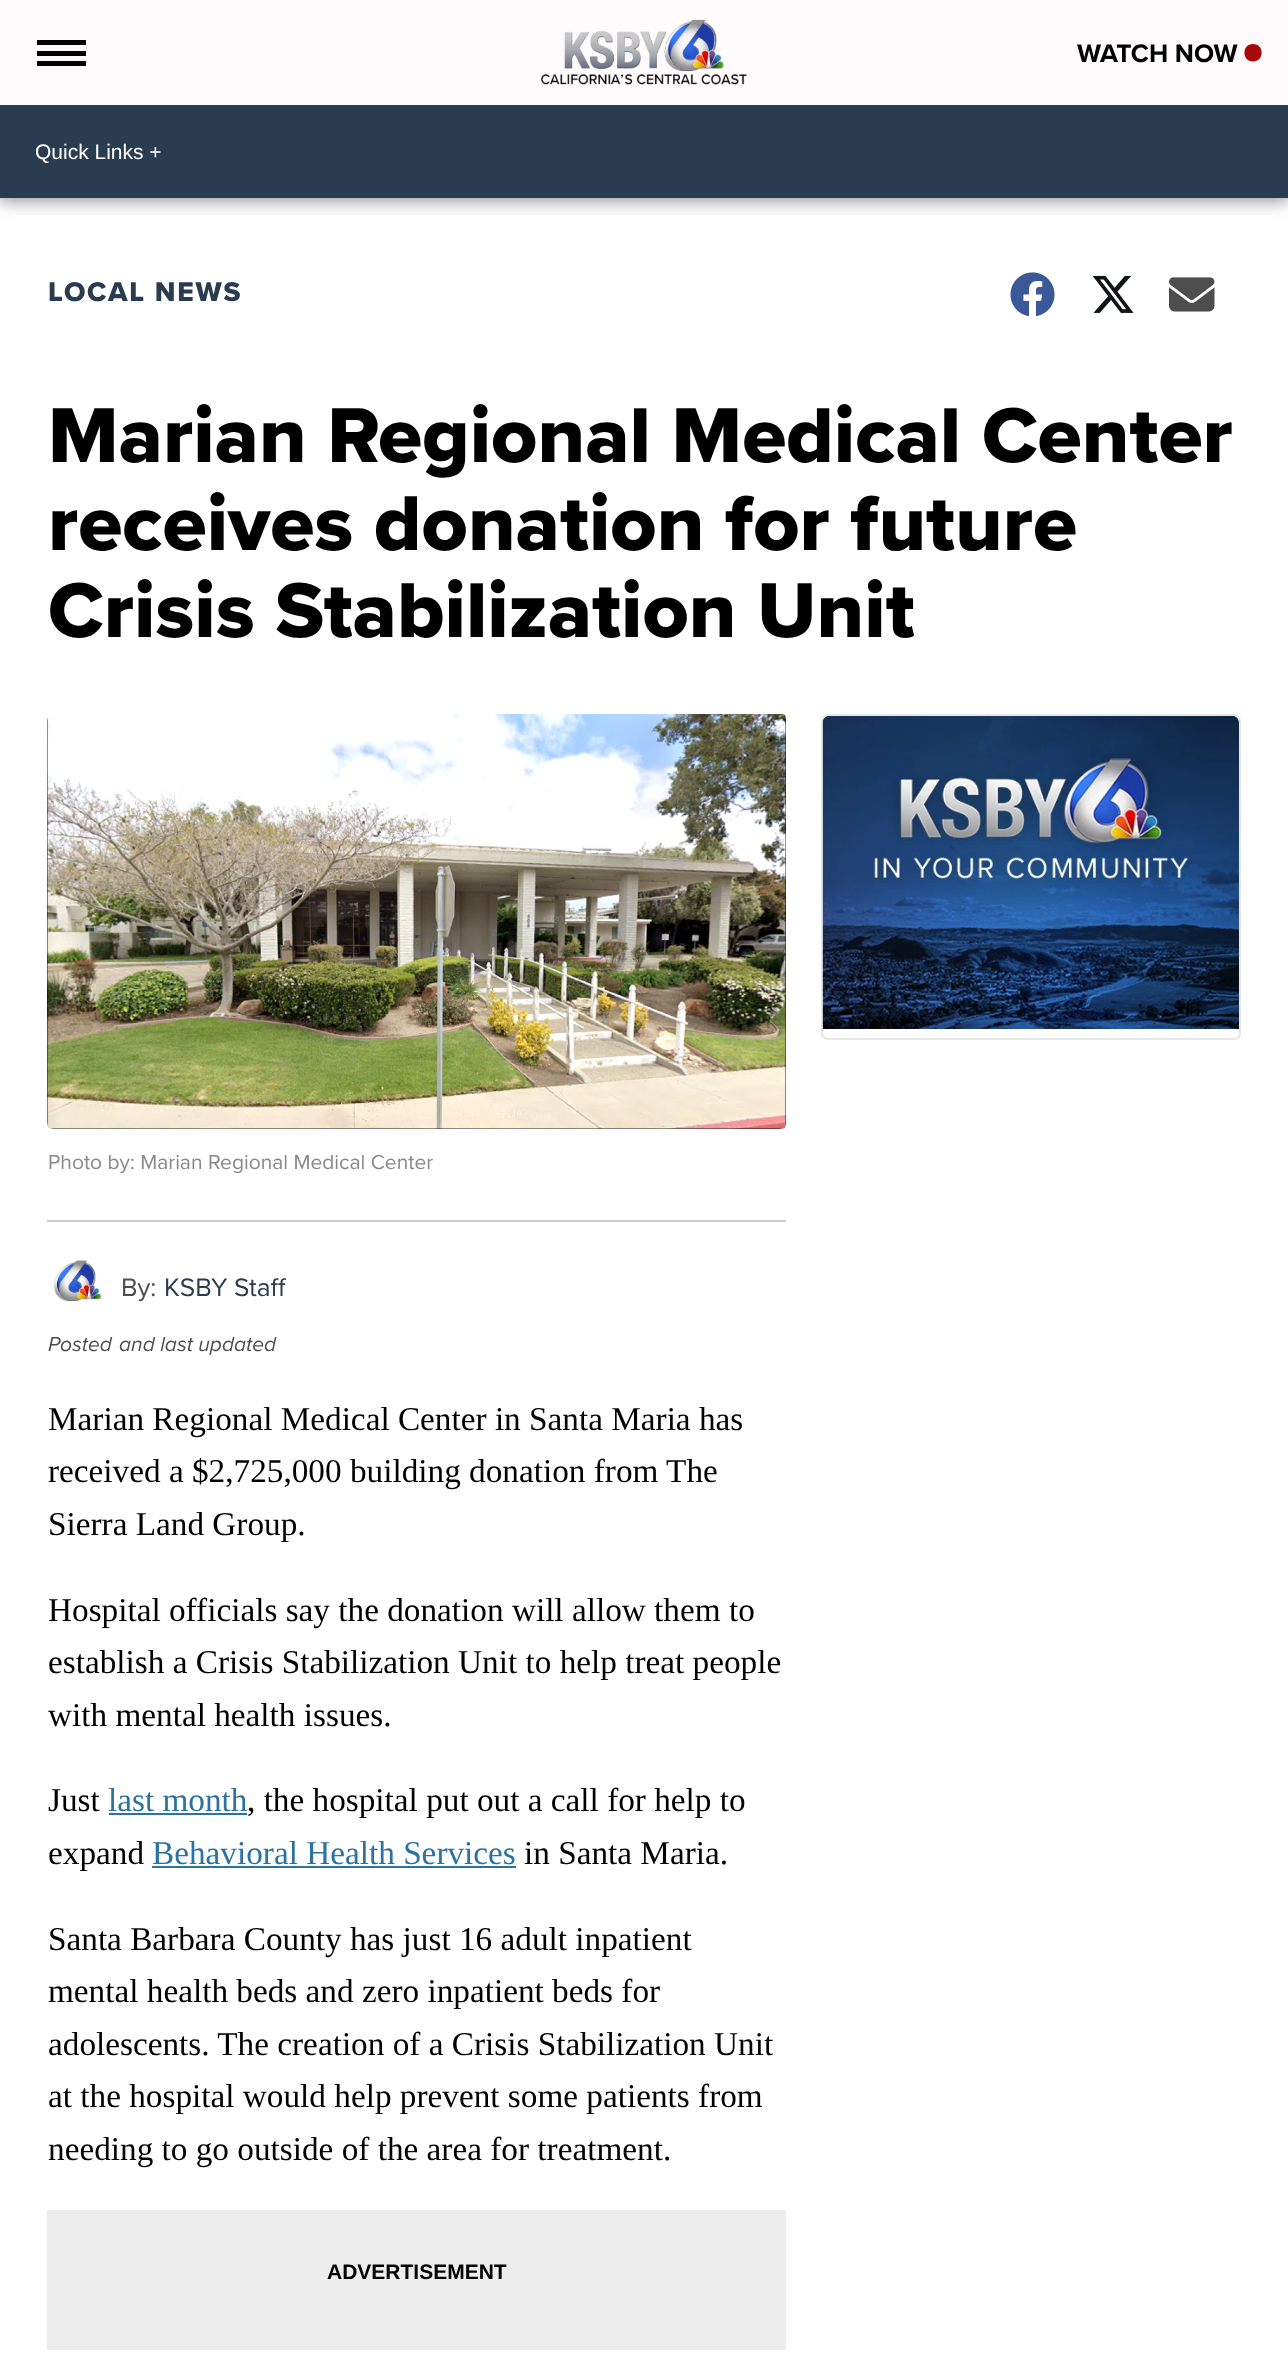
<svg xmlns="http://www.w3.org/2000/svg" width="1288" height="2377">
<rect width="100%" height="100%" fill="#fff"/>
<rect x="-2" y="-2" width="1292" height="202" fill="#616161c2" filter="blur(9px)"/>
<rect width="1288" height="105" fill="#fffbfd"/>
<rect x="37" y="40" width="49" height="5" fill="#000"/>
<rect x="37" y="51" width="49" height="5" fill="#000"/>
<rect x="37" y="61" width="49" height="5" fill="#000"/>
<image x="541" y="19" width="206" height="66" href="media/1.png"/>
<text x="1077" y="62" style="font-family:Proxima Nova;font-size:26.25px;font-weight:bold;fill:#000">WATCH NOW</text>
<path d="M1253 61.5c11.5 0 11.5-17.5 0-17.5c-11.5 0-11.5 17.5 0 17.5z" fill="#a70808"/>
<rect y="105" width="1288" height="93" fill="#2a3c4f"/>
<text x="35" y="159" style="font-family:Liberation Sans;font-size:21px;fill:#fff">Quick Links +</text>
<rect x="12" y="215" width="1264" height="3" fill="#fff"/>
<text x="48" y="301" style="font-family:Proxima Nova;font-size:28px;font-weight:800;letter-spacing:1.75px;fill:#2a3c4f">LOCAL NEWS</text>
<image x="1010" y="272" width="45" height="45" href="media/2.png"/>
<image x="1092" y="275" width="42" height="38" href="media/3.png"/>
<image x="1169" y="277" width="46" height="35" href="media/4.png"/>
<text x="48" y="462" style="font-family:Proxima Nova;font-size:80.5px;font-weight:800;fill:#000">Marian Regional Medical Center</text>
<text x="48" y="550" style="font-family:Proxima Nova;font-size:80.5px;font-weight:800;fill:#000">receives donation for future</text>
<text x="48" y="637" style="font-family:Proxima Nova;font-size:80.5px;font-weight:800;fill:#000">Crisis Stabilization Unit</text>
<rect x="822" y="715" width="418" height="324" rx="6" fill="none" stroke="#e7e7e7" stroke-width="2"/>
<image x="822" y="716" width="417" height="313" href="media/5.png"/>
<rect x="47" y="1220" width="739" height="2" fill="#ccc"/>
<rect x="47" y="714" width="739" height="415" rx="7" fill="#000"/>
<image x="47" y="714" width="739" height="415" href="media/6.png"/>
<text x="48" y="1169" style="font-family:Proxima Nova;font-size:21px;fill:#888">Photo by: Marian Regional Medical Center</text>
<image x="53" y="1260" width="49" height="41" href="media/7.png"/>
<text x="121" y="1296" style="font-family:Proxima Nova;font-size:26.25px;fill:#4d4d4d">By:</text>
<text x="164" y="1296" style="font-family:Proxima Nova;font-size:26.25px;fill:#2a3c4f">KSBY Staff</text>
<text x="48" y="1351" style="font-family:Proxima Nova;font-size:21px;font-style:italic;fill:#4d4d4d">Posted</text>
<text x="119" y="1351" style="font-family:Proxima Nova;font-size:21px;font-style:italic;fill:#4d4d4d">and last updated</text>
<text x="48" y="1430" style="font-family:Liberation Serif;font-size:33.25px;fill:#000">Marian Regional Medical Center in Santa Maria has</text>
<text x="48" y="1482" style="font-family:Liberation Serif;font-size:33.25px;fill:#000">received a $2,725,000 building donation from The</text>
<text x="48" y="1535" style="font-family:Liberation Serif;font-size:33.25px;fill:#000">Sierra Land Group.</text>
<text x="48" y="1621" style="font-family:Liberation Serif;font-size:33.25px;fill:#000">Hospital officials say the donation will allow them to</text>
<text x="48" y="1673" style="font-family:Liberation Serif;font-size:33.25px;fill:#000">establish a Crisis Stabilization Unit to help treat people</text>
<text x="48" y="1726" style="font-family:Liberation Serif;font-size:33.25px;fill:#000">with mental health issues.</text>
<text x="48" y="1811" style="font-family:Liberation Serif;font-size:33.25px;fill:#000">Just</text>
<text x="108" y="1811" style="font-family:Liberation Serif;font-size:33.25px;fill:#2972a3">last month</text>
<rect x="109" y="1813" width="138" height="2" fill="#2972a3"/>
<text x="247" y="1811" style="font-family:Liberation Serif;font-size:33.25px;fill:#000">, the hospital put out a call for help to</text>
<text x="48" y="1864" style="font-family:Liberation Serif;font-size:33.25px;fill:#000">expand</text>
<text x="152" y="1864" style="font-family:Liberation Serif;font-size:33.25px;fill:#2972a3">Behavioral Health Services</text>
<rect x="152" y="1866" width="364" height="2" fill="#2972a3"/>
<text x="524" y="1864" style="font-family:Liberation Serif;font-size:33.25px;fill:#000">in Santa Maria.</text>
<text x="48" y="1950" style="font-family:Liberation Serif;font-size:33.25px;fill:#000">Santa Barbara County has just 16 adult inpatient</text>
<text x="48" y="2002" style="font-family:Liberation Serif;font-size:33.25px;fill:#000">mental health beds and zero inpatient beds for</text>
<text x="48" y="2055" style="font-family:Liberation Serif;font-size:33.25px;fill:#000">adolescents. The creation of a Crisis Stabilization Unit</text>
<text x="48" y="2107" style="font-family:Liberation Serif;font-size:33.25px;fill:#000">at the hospital would help prevent some patients from</text>
<text x="48" y="2160" style="font-family:Liberation Serif;font-size:33.25px;fill:#000">needing to go outside of the area for treatment.</text>
<rect x="47" y="2210" width="739" height="140" fill="#ededed"/>
<text x="327" y="2279" style="font-family:Liberation Sans;font-size:21px;font-weight:bold;fill:#000">ADVERTISEMENT</text>
</svg>
